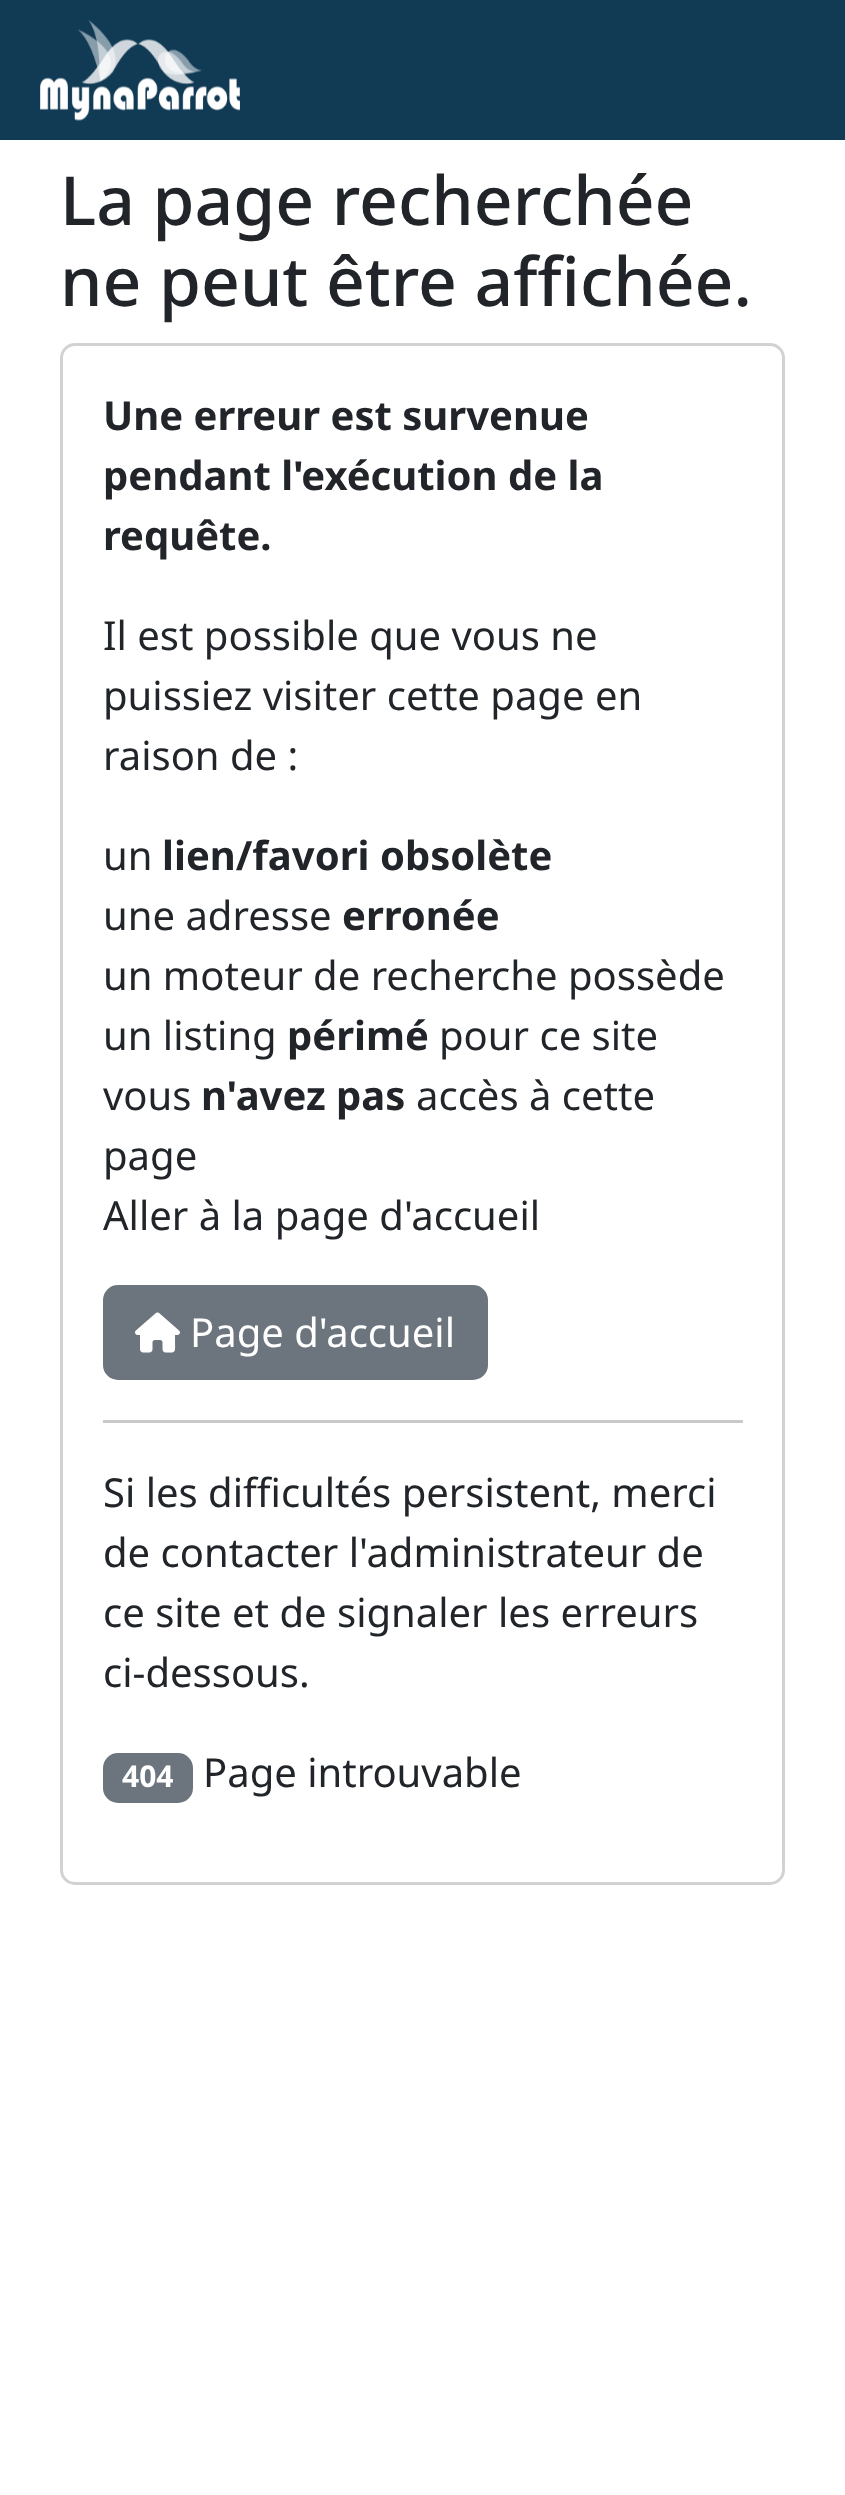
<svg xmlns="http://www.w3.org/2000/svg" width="845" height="2495">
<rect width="100%" height="100%" fill="#fff"/>
<rect width="845" height="140" fill="#113a55"/>
<image x="40" y="20" width="200" height="101" href="media/1.png"/>
<text x="60" y="225" style="font-family:Noto Sans;font-size:67.75px;font-weight:500;fill:#212529">La page recherchée</text>
<text x="60" y="306" style="font-family:Noto Sans;font-size:67.75px;font-weight:500;fill:#212529">ne peut être affichée.</text>
<rect x="61.5" y="344.5" width="722" height="1539" rx="13.5" fill="none" stroke="#d2d2d2" stroke-width="3"/>
<text x="103" y="430" style="font-family:Noto Sans;font-size:40px;font-weight:bold;fill:#212529">Une erreur est survenue</text>
<text x="103" y="490" style="font-family:Noto Sans;font-size:40px;font-weight:bold;fill:#212529">pendant l'exécution de la</text>
<text x="103" y="550" style="font-family:Noto Sans;font-size:40px;font-weight:bold;fill:#212529">requête.</text>
<text x="103" y="650" style="font-family:Noto Sans;font-size:40px;fill:#212529">Il est possible que vous ne</text>
<text x="103" y="710" style="font-family:Noto Sans;font-size:40px;fill:#212529">puissiez visiter cette page en</text>
<text x="103" y="770" style="font-family:Noto Sans;font-size:40px;fill:#212529">raison de :</text>
<text x="103" y="870" style="font-family:Noto Sans;font-size:40px;fill:#212529">un</text>
<text x="162" y="870" style="font-family:Noto Sans;font-size:40px;font-weight:bold;fill:#212529">lien/favori obsolète</text>
<text x="103" y="930" style="font-family:Noto Sans;font-size:40px;fill:#212529">une adresse</text>
<text x="342" y="930" style="font-family:Noto Sans;font-size:40px;font-weight:bold;fill:#212529">erronée</text>
<text x="103" y="990" style="font-family:Noto Sans;font-size:40px;fill:#212529">un moteur de recherche possède</text>
<text x="103" y="1050" style="font-family:Noto Sans;font-size:40px;fill:#212529">un listing</text>
<text x="287" y="1050" style="font-family:Noto Sans;font-size:40px;font-weight:bold;fill:#212529">périmé</text>
<text x="439" y="1050" style="font-family:Noto Sans;font-size:40px;fill:#212529">pour ce site</text>
<text x="103" y="1110" style="font-family:Noto Sans;font-size:40px;fill:#212529">vous</text>
<text x="201" y="1110" style="font-family:Noto Sans;font-size:40px;font-weight:bold;fill:#212529">n'avez pas</text>
<text x="416" y="1110" style="font-family:Noto Sans;font-size:40px;fill:#212529">accès à cette</text>
<text x="103" y="1170" style="font-family:Noto Sans;font-size:40px;fill:#212529">page</text>
<text x="103" y="1230" style="font-family:Noto Sans;font-size:40px;fill:#212529">Aller à la page d'accueil</text>
<rect x="104.5" y="1286.5" width="382" height="92" rx="13.5" fill="#6c757d" stroke="#6c757d" stroke-width="3"/>
<image x="135" y="1312" width="45" height="41" href="media/2.png"/>
<text x="190" y="1347" style="font-family:Noto Sans;font-size:40px;fill:#fff">Page d'accueil</text>
<rect x="103" y="1420" width="640" height="3" fill="#c8c9ca"/>
<text x="103" y="1507" style="font-family:Noto Sans;font-size:40px;fill:#212529">Si les difficultés persistent, merci</text>
<text x="103" y="1567" style="font-family:Noto Sans;font-size:40px;fill:#212529">de contacter l'administrateur de</text>
<text x="103" y="1627" style="font-family:Noto Sans;font-size:40px;fill:#212529">ce site et de signaler les erreurs</text>
<text x="103" y="1687" style="font-family:Noto Sans;font-size:40px;fill:#212529">ci-dessous.</text>
<rect x="103" y="1753" width="90" height="50" rx="15" fill="#6c757d"/>
<text x="122" y="1787" style="font-family:Noto Sans;font-size:30px;font-weight:bold;fill:#fff">404</text>
<text x="203" y="1787" style="font-family:Noto Sans;font-size:40px;fill:#212529">Page introuvable</text>
</svg>
